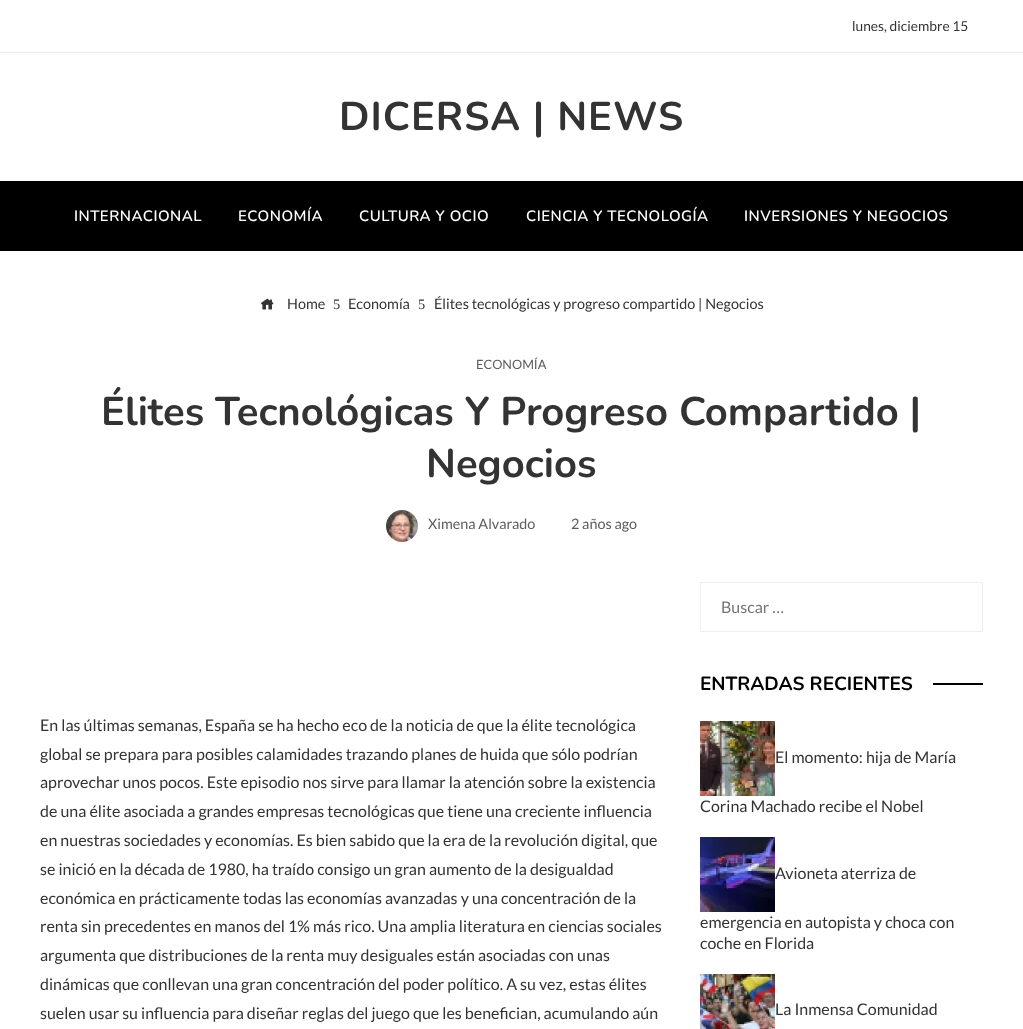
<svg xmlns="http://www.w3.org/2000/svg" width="1023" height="1029">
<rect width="100%" height="100%" fill="#fff"/>
<rect y="52" width="1023" height="1" fill="#ededed"/>
<text x="852" y="31" style="font-family:Lato;font-size:13.75px;fill:#333">lunes, diciembre 15</text>
<text x="339" y="130" style="font-family:Nunito;font-size:40px;font-weight:bold;letter-spacing:1px;fill:#333">DICERSA | NEWS</text>
<rect y="181" width="1023" height="70" fill="#000"/>
<text x="74" y="221" style="font-family:Nunito;font-size:15px;font-weight:600;letter-spacing:0.5px;fill:#fff">INTERNACIONAL</text>
<text x="238" y="221" style="font-family:Nunito;font-size:15px;font-weight:600;letter-spacing:0.5px;fill:#fff">ECONOMÍA</text>
<text x="359" y="221" style="font-family:Nunito;font-size:15px;font-weight:600;letter-spacing:0.5px;fill:#fff">CULTURA Y OCIO</text>
<text x="526" y="221" style="font-family:Nunito;font-size:15px;font-weight:600;letter-spacing:0.5px;fill:#fff">CIENCIA Y TECNOLOGÍA</text>
<text x="744" y="221" style="font-family:Nunito;font-size:15px;font-weight:600;letter-spacing:0.5px;fill:#fff">INVERSIONES Y NEGOCIOS</text>
<image x="261" y="298" width="13" height="12" href="media/1.png"/>
<text x="287" y="309" style="font-family:Lato;font-size:14.4px;fill:#333">Home</text>
<text x="333" y="309" style="font-family:Liberation Serif;font-size:14.4px;fill:#333">5</text>
<text x="348" y="309" style="font-family:Lato;font-size:14.4px;fill:#333">Economía</text>
<text x="418" y="309" style="font-family:Liberation Serif;font-size:14.4px;fill:#333">5</text>
<text x="434" y="309" style="font-family:Lato;font-size:14.4px;fill:#333">Élites tecnológicas y progreso compartido | Negocios</text>
<text x="476" y="369" style="font-family:Lato;font-size:12.75px;fill:#5c5c5c">ECONOMÍA</text>
<text x="101" y="425" style="font-family:Nunito;font-size:40px;font-weight:bold;fill:#333">Élites Tecnológicas Y Progreso Compartido |</text>
<text x="426" y="477" style="font-family:Nunito;font-size:40px;font-weight:bold;fill:#333">Negocios</text>
<image x="386" y="510" width="32" height="32" href="media/2.png"/>
<text x="428" y="529" style="font-family:Lato;font-size:14.4px;fill:#5c5c5c">Ximena Alvarado</text>
<text x="571" y="529" style="font-family:Lato;font-size:14.4px;fill:#5c5c5c">2 años ago</text>
<text x="40" y="731" style="font-family:Lato;font-size:16px;fill:#333">En las últimas semanas, España se ha hecho eco de la noticia de que la élite tecnológica</text>
<text x="40" y="760" style="font-family:Lato;font-size:16px;fill:#333">global se prepara para posibles calamidades trazando planes de huida que sólo podrían</text>
<text x="40" y="788" style="font-family:Lato;font-size:16px;fill:#333">aprovechar unos pocos. Este episodio nos sirve para llamar la atención sobre la existencia</text>
<text x="40" y="817" style="font-family:Lato;font-size:16px;fill:#333">de una élite asociada a grandes empresas tecnológicas que tiene una creciente influencia</text>
<text x="40" y="846" style="font-family:Lato;font-size:16px;fill:#333">en nuestras sociedades y economías. Es bien sabido que la era de la revolución digital, que</text>
<text x="40" y="875" style="font-family:Lato;font-size:16px;fill:#333">se inició en la década de 1980, ha traído consigo un gran aumento de la desigualdad</text>
<text x="40" y="904" style="font-family:Lato;font-size:16px;fill:#333">económica en prácticamente todas las economías avanzadas y una concentración de la</text>
<text x="40" y="932" style="font-family:Lato;font-size:16px;fill:#333">renta sin precedentes en manos del 1% más rico. Una amplia literatura en ciencias sociales</text>
<text x="40" y="961" style="font-family:Lato;font-size:16px;fill:#333">argumenta que distribuciones de la renta muy desiguales están asociadas con unas</text>
<text x="40" y="990" style="font-family:Lato;font-size:16px;fill:#333">dinámicas que conllevan una gran concentración del poder político. A su vez, estas élites</text>
<text x="40" y="1019" style="font-family:Lato;font-size:16px;fill:#333">suelen usar su influencia para diseñar reglas del juego que les benefician, acumulando aún</text>
<rect x="700.5" y="582.5" width="282" height="49" fill="none" stroke="#eee"/>
<text x="721" y="613" style="font-family:Lato;font-size:16px;fill:#757575">Buscar …</text>
<text x="700" y="690" style="font-family:Nunito;font-size:19px;font-weight:bold;fill:#000">ENTRADAS RECIENTES</text>
<rect x="933" y="683" width="50" height="2" fill="#000"/>
<image x="700" y="721" width="75" height="75" href="media/3.png"/>
<text x="775" y="763" style="font-family:Lato;font-size:16px;fill:#333">El momento: hija de María</text>
<text x="700" y="812" style="font-family:Lato;font-size:16px;fill:#333">Corina Machado recibe el Nobel</text>
<image x="700" y="837" width="75" height="75" href="media/4.png"/>
<text x="775" y="879" style="font-family:Lato;font-size:16px;fill:#333">Avioneta aterriza de</text>
<text x="700" y="928" style="font-family:Lato;font-size:16px;fill:#333">emergencia en autopista y choca con</text>
<text x="700" y="949" style="font-family:Lato;font-size:16px;fill:#333">coche en Florida</text>
<image x="700" y="974" width="75" height="55" href="media/5.png"/>
<text x="775" y="1015" style="font-family:Lato;font-size:16px;fill:#333">La Inmensa Comunidad</text>
</svg>
